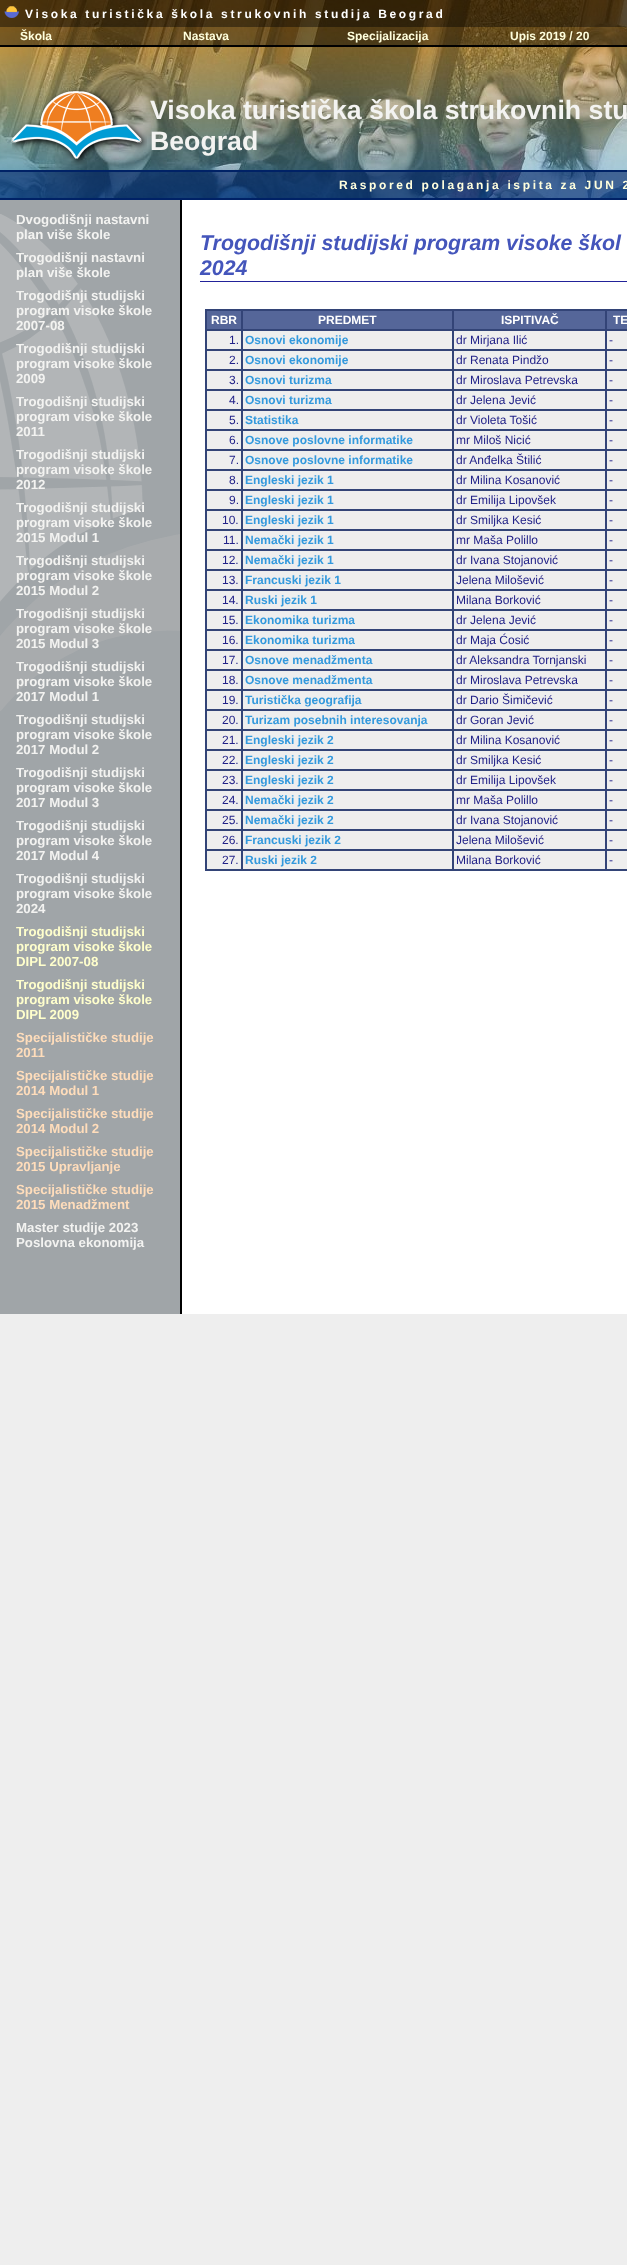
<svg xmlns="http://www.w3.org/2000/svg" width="627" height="2265">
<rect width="100%" height="100%" fill="#eee"/>
<image x="0" y="0" width="627" height="198" href="media/1.png"/>
<rect width="627" height="27" fill="#000000a6"/>
<image x="4" y="6" width="15" height="12" href="media/2.png"/>
<text x="25" y="18" style="font-family:Liberation Sans;font-size:12px;font-weight:bold;letter-spacing:2.65px;fill:#fff">Visoka turistička škola strukovnih studija Beograd</text>
<rect y="27" width="627" height="18" fill="#00000066"/>
<rect y="45" width="627" height="2" fill="#000"/>
<text x="20" y="40" style="font-family:Liberation Sans;font-size:12px;font-weight:bold;fill:#ffd">Škola</text>
<text x="183" y="40" style="font-family:Liberation Sans;font-size:12px;font-weight:bold;fill:#ffd">Nastava</text>
<text x="347" y="40" style="font-family:Liberation Sans;font-size:12px;font-weight:bold;fill:#ffd">Specijalizacija</text>
<text x="510" y="40" style="font-family:Liberation Sans;font-size:12px;font-weight:bold;fill:#ffd">Upis 2019 / 20</text>
<image x="11" y="88" width="136" height="77" href="media/3.png"/>
<text x="150" y="119" style="font-family:Liberation Sans;font-size:26.7px;font-weight:bold;fill:#f3f3f1">Visoka turistička škola strukovnih stu</text>
<text x="150" y="150" style="font-family:Liberation Sans;font-size:26.7px;font-weight:bold;fill:#f3f3f1">Beograd</text>
<rect y="172" width="627" height="26" fill="#00226699"/>
<rect y="170" width="627" height="2" fill="#026"/>
<rect y="198" width="627" height="2" fill="#026"/>
<text x="339" y="189" style="font-family:Liberation Sans;font-size:12px;font-weight:bold;letter-spacing:2.65px;fill:#ffd">Raspored polaganja ispita za JUN 2</text>
<rect x="182" y="200" width="445" height="1114" fill="#fff"/>
<rect y="200" width="180" height="1114" fill="#a0a5a8"/>
<image x="0" y="214" width="180" height="497" href="media/4.png"/>
<rect x="180" y="200" width="2" height="1114" fill="#000"/>
<text x="16" y="224" style="font-family:Liberation Sans;font-size:13.25px;font-weight:bold;fill:#f3f3f1">Dvogodišnji nastavni</text>
<text x="16" y="239" style="font-family:Liberation Sans;font-size:13.25px;font-weight:bold;fill:#f3f3f1">plan više škole</text>
<text x="16" y="262" style="font-family:Liberation Sans;font-size:13.25px;font-weight:bold;fill:#f3f3f1">Trogodišnji nastavni</text>
<text x="16" y="277" style="font-family:Liberation Sans;font-size:13.25px;font-weight:bold;fill:#f3f3f1">plan više škole</text>
<text x="16" y="300" style="font-family:Liberation Sans;font-size:13.25px;font-weight:bold;fill:#f3f3f1">Trogodišnji studijski</text>
<text x="16" y="315" style="font-family:Liberation Sans;font-size:13.25px;font-weight:bold;fill:#f3f3f1">program visoke škole</text>
<text x="16" y="330" style="font-family:Liberation Sans;font-size:13.25px;font-weight:bold;fill:#f3f3f1">2007-08</text>
<text x="16" y="353" style="font-family:Liberation Sans;font-size:13.25px;font-weight:bold;fill:#f3f3f1">Trogodišnji studijski</text>
<text x="16" y="368" style="font-family:Liberation Sans;font-size:13.25px;font-weight:bold;fill:#f3f3f1">program visoke škole</text>
<text x="16" y="383" style="font-family:Liberation Sans;font-size:13.25px;font-weight:bold;fill:#f3f3f1">2009</text>
<text x="16" y="406" style="font-family:Liberation Sans;font-size:13.25px;font-weight:bold;fill:#f3f3f1">Trogodišnji studijski</text>
<text x="16" y="421" style="font-family:Liberation Sans;font-size:13.25px;font-weight:bold;fill:#f3f3f1">program visoke škole</text>
<text x="16" y="436" style="font-family:Liberation Sans;font-size:13.25px;font-weight:bold;fill:#f3f3f1">2011</text>
<text x="16" y="459" style="font-family:Liberation Sans;font-size:13.25px;font-weight:bold;fill:#f3f3f1">Trogodišnji studijski</text>
<text x="16" y="474" style="font-family:Liberation Sans;font-size:13.25px;font-weight:bold;fill:#f3f3f1">program visoke škole</text>
<text x="16" y="489" style="font-family:Liberation Sans;font-size:13.25px;font-weight:bold;fill:#f3f3f1">2012</text>
<text x="16" y="512" style="font-family:Liberation Sans;font-size:13.25px;font-weight:bold;fill:#f3f3f1">Trogodišnji studijski</text>
<text x="16" y="527" style="font-family:Liberation Sans;font-size:13.25px;font-weight:bold;fill:#f3f3f1">program visoke škole</text>
<text x="16" y="542" style="font-family:Liberation Sans;font-size:13.25px;font-weight:bold;fill:#f3f3f1">2015 Modul 1</text>
<text x="16" y="565" style="font-family:Liberation Sans;font-size:13.25px;font-weight:bold;fill:#f3f3f1">Trogodišnji studijski</text>
<text x="16" y="580" style="font-family:Liberation Sans;font-size:13.25px;font-weight:bold;fill:#f3f3f1">program visoke škole</text>
<text x="16" y="595" style="font-family:Liberation Sans;font-size:13.25px;font-weight:bold;fill:#f3f3f1">2015 Modul 2</text>
<text x="16" y="618" style="font-family:Liberation Sans;font-size:13.25px;font-weight:bold;fill:#f3f3f1">Trogodišnji studijski</text>
<text x="16" y="633" style="font-family:Liberation Sans;font-size:13.25px;font-weight:bold;fill:#f3f3f1">program visoke škole</text>
<text x="16" y="648" style="font-family:Liberation Sans;font-size:13.25px;font-weight:bold;fill:#f3f3f1">2015 Modul 3</text>
<text x="16" y="671" style="font-family:Liberation Sans;font-size:13.25px;font-weight:bold;fill:#f3f3f1">Trogodišnji studijski</text>
<text x="16" y="686" style="font-family:Liberation Sans;font-size:13.25px;font-weight:bold;fill:#f3f3f1">program visoke škole</text>
<text x="16" y="701" style="font-family:Liberation Sans;font-size:13.25px;font-weight:bold;fill:#f3f3f1">2017 Modul 1</text>
<text x="16" y="724" style="font-family:Liberation Sans;font-size:13.25px;font-weight:bold;fill:#f3f3f1">Trogodišnji studijski</text>
<text x="16" y="739" style="font-family:Liberation Sans;font-size:13.25px;font-weight:bold;fill:#f3f3f1">program visoke škole</text>
<text x="16" y="754" style="font-family:Liberation Sans;font-size:13.25px;font-weight:bold;fill:#f3f3f1">2017 Modul 2</text>
<text x="16" y="777" style="font-family:Liberation Sans;font-size:13.25px;font-weight:bold;fill:#f3f3f1">Trogodišnji studijski</text>
<text x="16" y="792" style="font-family:Liberation Sans;font-size:13.25px;font-weight:bold;fill:#f3f3f1">program visoke škole</text>
<text x="16" y="807" style="font-family:Liberation Sans;font-size:13.25px;font-weight:bold;fill:#f3f3f1">2017 Modul 3</text>
<text x="16" y="830" style="font-family:Liberation Sans;font-size:13.25px;font-weight:bold;fill:#f3f3f1">Trogodišnji studijski</text>
<text x="16" y="845" style="font-family:Liberation Sans;font-size:13.25px;font-weight:bold;fill:#f3f3f1">program visoke škole</text>
<text x="16" y="860" style="font-family:Liberation Sans;font-size:13.25px;font-weight:bold;fill:#f3f3f1">2017 Modul 4</text>
<text x="16" y="883" style="font-family:Liberation Sans;font-size:13.25px;font-weight:bold;fill:#f3f3f1">Trogodišnji studijski</text>
<text x="16" y="898" style="font-family:Liberation Sans;font-size:13.25px;font-weight:bold;fill:#f3f3f1">program visoke škole</text>
<text x="16" y="913" style="font-family:Liberation Sans;font-size:13.25px;font-weight:bold;fill:#f3f3f1">2024</text>
<text x="16" y="936" style="font-family:Liberation Sans;font-size:13.25px;font-weight:bold;fill:#ffc">Trogodišnji studijski</text>
<text x="16" y="951" style="font-family:Liberation Sans;font-size:13.25px;font-weight:bold;fill:#ffc">program visoke škole</text>
<text x="16" y="966" style="font-family:Liberation Sans;font-size:13.25px;font-weight:bold;fill:#ffc">DIPL 2007-08</text>
<text x="16" y="989" style="font-family:Liberation Sans;font-size:13.25px;font-weight:bold;fill:#ffc">Trogodišnji studijski</text>
<text x="16" y="1004" style="font-family:Liberation Sans;font-size:13.25px;font-weight:bold;fill:#ffc">program visoke škole</text>
<text x="16" y="1019" style="font-family:Liberation Sans;font-size:13.25px;font-weight:bold;fill:#ffc">DIPL 2009</text>
<text x="16" y="1042" style="font-family:Liberation Sans;font-size:13.25px;font-weight:bold;fill:#fdb">Specijalističke studije</text>
<text x="16" y="1057" style="font-family:Liberation Sans;font-size:13.25px;font-weight:bold;fill:#fdb">2011</text>
<text x="16" y="1080" style="font-family:Liberation Sans;font-size:13.25px;font-weight:bold;fill:#fdb">Specijalističke studije</text>
<text x="16" y="1095" style="font-family:Liberation Sans;font-size:13.25px;font-weight:bold;fill:#fdb">2014 Modul 1</text>
<text x="16" y="1118" style="font-family:Liberation Sans;font-size:13.25px;font-weight:bold;fill:#fdb">Specijalističke studije</text>
<text x="16" y="1133" style="font-family:Liberation Sans;font-size:13.25px;font-weight:bold;fill:#fdb">2014 Modul 2</text>
<text x="16" y="1156" style="font-family:Liberation Sans;font-size:13.25px;font-weight:bold;fill:#fdb">Specijalističke studije</text>
<text x="16" y="1171" style="font-family:Liberation Sans;font-size:13.25px;font-weight:bold;fill:#fdb">2015 Upravljanje</text>
<text x="16" y="1194" style="font-family:Liberation Sans;font-size:13.25px;font-weight:bold;fill:#fdb">Specijalističke studije</text>
<text x="16" y="1209" style="font-family:Liberation Sans;font-size:13.25px;font-weight:bold;fill:#fdb">2015 Menadžment</text>
<text x="16" y="1232" style="font-family:Liberation Sans;font-size:13.25px;font-weight:bold;fill:#f3f3f1">Master studije 2023</text>
<text x="16" y="1247" style="font-family:Liberation Sans;font-size:13.25px;font-weight:bold;fill:#f3f3f1">Poslovna ekonomija</text>
<rect x="200" y="281" width="427" height="1" fill="#229"/>
<text x="200" y="250" style="font-family:Liberation Sans;font-size:21.3px;font-weight:bold;font-style:italic;fill:#45b">Trogodišnji studijski program visoke škol</text>
<text x="200" y="275" style="font-family:Liberation Sans;font-size:21.3px;font-weight:bold;font-style:italic;fill:#45b">2024</text>
<rect x="207" y="331" width="420" height="538" fill="#eee"/>
<rect x="205.5" y="309.5" width="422" height="561" fill="none" stroke="#347"/>
<rect x="207" y="311" width="420" height="18" fill="#569"/>
<rect x="206.5" y="310.5" width="35" height="19" fill="none" stroke="#347"/>
<text x="211" y="324" style="font-family:Liberation Sans;font-size:12px;font-weight:bold;fill:#fff">RBR</text>
<rect x="242.5" y="310.5" width="210" height="19" fill="none" stroke="#347"/>
<text x="318" y="324" style="font-family:Liberation Sans;font-size:12px;font-weight:bold;fill:#fff">PREDMET</text>
<rect x="453.5" y="310.5" width="152" height="19" fill="none" stroke="#347"/>
<text x="501" y="324" style="font-family:Liberation Sans;font-size:12px;font-weight:bold;fill:#fff">ISPITIVAČ</text>
<rect x="606.5" y="310.5" width="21" height="19" fill="none" stroke="#347"/>
<text x="613" y="324" style="font-family:Liberation Sans;font-size:12px;font-weight:bold;fill:#fff">TE</text>
<rect x="206.5" y="330.5" width="35" height="19" fill="none" stroke="#347"/>
<text x="229" y="344" style="font-family:Liberation Sans;font-size:12px;fill:#228">1.</text>
<rect x="242.5" y="330.5" width="210" height="19" fill="none" stroke="#347"/>
<text x="245" y="344" style="font-family:Liberation Sans;font-size:12px;font-weight:bold;fill:#39d">Osnovi ekonomije</text>
<rect x="453.5" y="330.5" width="152" height="19" fill="none" stroke="#347"/>
<text x="456" y="344" style="font-family:Liberation Sans;font-size:12px;fill:#228">dr Mirjana Ilić</text>
<rect x="606.5" y="330.5" width="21" height="19" fill="none" stroke="#347"/>
<text x="609" y="344" style="font-family:Liberation Sans;font-size:12px;fill:#228">-</text>
<rect x="206.5" y="350.5" width="35" height="19" fill="none" stroke="#347"/>
<text x="229" y="364" style="font-family:Liberation Sans;font-size:12px;fill:#228">2.</text>
<rect x="242.5" y="350.5" width="210" height="19" fill="none" stroke="#347"/>
<text x="245" y="364" style="font-family:Liberation Sans;font-size:12px;font-weight:bold;fill:#39d">Osnovi ekonomije</text>
<rect x="453.5" y="350.5" width="152" height="19" fill="none" stroke="#347"/>
<text x="456" y="364" style="font-family:Liberation Sans;font-size:12px;fill:#228">dr Renata Pindžo</text>
<rect x="606.5" y="350.5" width="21" height="19" fill="none" stroke="#347"/>
<text x="609" y="364" style="font-family:Liberation Sans;font-size:12px;fill:#228">-</text>
<rect x="206.5" y="370.5" width="35" height="19" fill="none" stroke="#347"/>
<text x="229" y="384" style="font-family:Liberation Sans;font-size:12px;fill:#228">3.</text>
<rect x="242.5" y="370.5" width="210" height="19" fill="none" stroke="#347"/>
<text x="245" y="384" style="font-family:Liberation Sans;font-size:12px;font-weight:bold;fill:#39d">Osnovi turizma</text>
<rect x="453.5" y="370.5" width="152" height="19" fill="none" stroke="#347"/>
<text x="456" y="384" style="font-family:Liberation Sans;font-size:12px;fill:#228">dr Miroslava Petrevska</text>
<rect x="606.5" y="370.5" width="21" height="19" fill="none" stroke="#347"/>
<text x="609" y="384" style="font-family:Liberation Sans;font-size:12px;fill:#228">-</text>
<rect x="206.5" y="390.5" width="35" height="19" fill="none" stroke="#347"/>
<text x="229" y="404" style="font-family:Liberation Sans;font-size:12px;fill:#228">4.</text>
<rect x="242.5" y="390.5" width="210" height="19" fill="none" stroke="#347"/>
<text x="245" y="404" style="font-family:Liberation Sans;font-size:12px;font-weight:bold;fill:#39d">Osnovi turizma</text>
<rect x="453.5" y="390.5" width="152" height="19" fill="none" stroke="#347"/>
<text x="456" y="404" style="font-family:Liberation Sans;font-size:12px;fill:#228">dr Jelena Jević</text>
<rect x="606.5" y="390.5" width="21" height="19" fill="none" stroke="#347"/>
<text x="609" y="404" style="font-family:Liberation Sans;font-size:12px;fill:#228">-</text>
<rect x="206.5" y="410.5" width="35" height="19" fill="none" stroke="#347"/>
<text x="229" y="424" style="font-family:Liberation Sans;font-size:12px;fill:#228">5.</text>
<rect x="242.5" y="410.5" width="210" height="19" fill="none" stroke="#347"/>
<text x="245" y="424" style="font-family:Liberation Sans;font-size:12px;font-weight:bold;fill:#39d">Statistika</text>
<rect x="453.5" y="410.5" width="152" height="19" fill="none" stroke="#347"/>
<text x="456" y="424" style="font-family:Liberation Sans;font-size:12px;fill:#228">dr Violeta Tošić</text>
<rect x="606.5" y="410.5" width="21" height="19" fill="none" stroke="#347"/>
<text x="609" y="424" style="font-family:Liberation Sans;font-size:12px;fill:#228">-</text>
<rect x="206.5" y="430.5" width="35" height="19" fill="none" stroke="#347"/>
<text x="229" y="444" style="font-family:Liberation Sans;font-size:12px;fill:#228">6.</text>
<rect x="242.5" y="430.5" width="210" height="19" fill="none" stroke="#347"/>
<text x="245" y="444" style="font-family:Liberation Sans;font-size:12px;font-weight:bold;fill:#39d">Osnove poslovne informatike</text>
<rect x="453.5" y="430.5" width="152" height="19" fill="none" stroke="#347"/>
<text x="456" y="444" style="font-family:Liberation Sans;font-size:12px;fill:#228">mr Miloš Nicić</text>
<rect x="606.5" y="430.5" width="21" height="19" fill="none" stroke="#347"/>
<text x="609" y="444" style="font-family:Liberation Sans;font-size:12px;fill:#228">-</text>
<rect x="206.5" y="450.5" width="35" height="19" fill="none" stroke="#347"/>
<text x="229" y="464" style="font-family:Liberation Sans;font-size:12px;fill:#228">7.</text>
<rect x="242.5" y="450.5" width="210" height="19" fill="none" stroke="#347"/>
<text x="245" y="464" style="font-family:Liberation Sans;font-size:12px;font-weight:bold;fill:#39d">Osnove poslovne informatike</text>
<rect x="453.5" y="450.5" width="152" height="19" fill="none" stroke="#347"/>
<text x="456" y="464" style="font-family:Liberation Sans;font-size:12px;fill:#228">dr Anđelka Štilić</text>
<rect x="606.5" y="450.5" width="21" height="19" fill="none" stroke="#347"/>
<text x="609" y="464" style="font-family:Liberation Sans;font-size:12px;fill:#228">-</text>
<rect x="206.5" y="470.5" width="35" height="19" fill="none" stroke="#347"/>
<text x="229" y="484" style="font-family:Liberation Sans;font-size:12px;fill:#228">8.</text>
<rect x="242.5" y="470.5" width="210" height="19" fill="none" stroke="#347"/>
<text x="245" y="484" style="font-family:Liberation Sans;font-size:12px;font-weight:bold;fill:#39d">Engleski jezik 1</text>
<rect x="453.5" y="470.5" width="152" height="19" fill="none" stroke="#347"/>
<text x="456" y="484" style="font-family:Liberation Sans;font-size:12px;fill:#228">dr Milina Kosanović</text>
<rect x="606.5" y="470.5" width="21" height="19" fill="none" stroke="#347"/>
<text x="609" y="484" style="font-family:Liberation Sans;font-size:12px;fill:#228">-</text>
<rect x="206.5" y="490.5" width="35" height="19" fill="none" stroke="#347"/>
<text x="229" y="504" style="font-family:Liberation Sans;font-size:12px;fill:#228">9.</text>
<rect x="242.5" y="490.5" width="210" height="19" fill="none" stroke="#347"/>
<text x="245" y="504" style="font-family:Liberation Sans;font-size:12px;font-weight:bold;fill:#39d">Engleski jezik 1</text>
<rect x="453.5" y="490.5" width="152" height="19" fill="none" stroke="#347"/>
<text x="456" y="504" style="font-family:Liberation Sans;font-size:12px;fill:#228">dr Emilija Lipovšek</text>
<rect x="606.5" y="490.5" width="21" height="19" fill="none" stroke="#347"/>
<text x="609" y="504" style="font-family:Liberation Sans;font-size:12px;fill:#228">-</text>
<rect x="206.5" y="510.5" width="35" height="19" fill="none" stroke="#347"/>
<text x="222" y="524" style="font-family:Liberation Sans;font-size:12px;fill:#228">10.</text>
<rect x="242.5" y="510.5" width="210" height="19" fill="none" stroke="#347"/>
<text x="245" y="524" style="font-family:Liberation Sans;font-size:12px;font-weight:bold;fill:#39d">Engleski jezik 1</text>
<rect x="453.5" y="510.5" width="152" height="19" fill="none" stroke="#347"/>
<text x="456" y="524" style="font-family:Liberation Sans;font-size:12px;fill:#228">dr Smiljka Kesić</text>
<rect x="606.5" y="510.5" width="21" height="19" fill="none" stroke="#347"/>
<text x="609" y="524" style="font-family:Liberation Sans;font-size:12px;fill:#228">-</text>
<rect x="206.5" y="530.5" width="35" height="19" fill="none" stroke="#347"/>
<text x="223" y="544" style="font-family:Liberation Sans;font-size:12px;fill:#228">11.</text>
<rect x="242.5" y="530.5" width="210" height="19" fill="none" stroke="#347"/>
<text x="245" y="544" style="font-family:Liberation Sans;font-size:12px;font-weight:bold;fill:#39d">Nemački jezik 1</text>
<rect x="453.5" y="530.5" width="152" height="19" fill="none" stroke="#347"/>
<text x="456" y="544" style="font-family:Liberation Sans;font-size:12px;fill:#228">mr Maša Polillo</text>
<rect x="606.5" y="530.5" width="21" height="19" fill="none" stroke="#347"/>
<text x="609" y="544" style="font-family:Liberation Sans;font-size:12px;fill:#228">-</text>
<rect x="206.5" y="550.5" width="35" height="19" fill="none" stroke="#347"/>
<text x="222" y="564" style="font-family:Liberation Sans;font-size:12px;fill:#228">12.</text>
<rect x="242.5" y="550.5" width="210" height="19" fill="none" stroke="#347"/>
<text x="245" y="564" style="font-family:Liberation Sans;font-size:12px;font-weight:bold;fill:#39d">Nemački jezik 1</text>
<rect x="453.5" y="550.5" width="152" height="19" fill="none" stroke="#347"/>
<text x="456" y="564" style="font-family:Liberation Sans;font-size:12px;fill:#228">dr Ivana Stojanović</text>
<rect x="606.5" y="550.5" width="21" height="19" fill="none" stroke="#347"/>
<text x="609" y="564" style="font-family:Liberation Sans;font-size:12px;fill:#228">-</text>
<rect x="206.5" y="570.5" width="35" height="19" fill="none" stroke="#347"/>
<text x="222" y="584" style="font-family:Liberation Sans;font-size:12px;fill:#228">13.</text>
<rect x="242.5" y="570.5" width="210" height="19" fill="none" stroke="#347"/>
<text x="245" y="584" style="font-family:Liberation Sans;font-size:12px;font-weight:bold;fill:#39d">Francuski jezik 1</text>
<rect x="453.5" y="570.5" width="152" height="19" fill="none" stroke="#347"/>
<text x="456" y="584" style="font-family:Liberation Sans;font-size:12px;fill:#228">Jelena Milošević</text>
<rect x="606.5" y="570.5" width="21" height="19" fill="none" stroke="#347"/>
<text x="609" y="584" style="font-family:Liberation Sans;font-size:12px;fill:#228">-</text>
<rect x="206.5" y="590.5" width="35" height="19" fill="none" stroke="#347"/>
<text x="222" y="604" style="font-family:Liberation Sans;font-size:12px;fill:#228">14.</text>
<rect x="242.5" y="590.5" width="210" height="19" fill="none" stroke="#347"/>
<text x="245" y="604" style="font-family:Liberation Sans;font-size:12px;font-weight:bold;fill:#39d">Ruski jezik 1</text>
<rect x="453.5" y="590.5" width="152" height="19" fill="none" stroke="#347"/>
<text x="456" y="604" style="font-family:Liberation Sans;font-size:12px;fill:#228">Milana Borković</text>
<rect x="606.5" y="590.5" width="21" height="19" fill="none" stroke="#347"/>
<text x="609" y="604" style="font-family:Liberation Sans;font-size:12px;fill:#228">-</text>
<rect x="206.5" y="610.5" width="35" height="19" fill="none" stroke="#347"/>
<text x="222" y="624" style="font-family:Liberation Sans;font-size:12px;fill:#228">15.</text>
<rect x="242.5" y="610.5" width="210" height="19" fill="none" stroke="#347"/>
<text x="245" y="624" style="font-family:Liberation Sans;font-size:12px;font-weight:bold;fill:#39d">Ekonomika turizma</text>
<rect x="453.5" y="610.5" width="152" height="19" fill="none" stroke="#347"/>
<text x="456" y="624" style="font-family:Liberation Sans;font-size:12px;fill:#228">dr Jelena Jević</text>
<rect x="606.5" y="610.5" width="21" height="19" fill="none" stroke="#347"/>
<text x="609" y="624" style="font-family:Liberation Sans;font-size:12px;fill:#228">-</text>
<rect x="206.5" y="630.5" width="35" height="19" fill="none" stroke="#347"/>
<text x="222" y="644" style="font-family:Liberation Sans;font-size:12px;fill:#228">16.</text>
<rect x="242.5" y="630.5" width="210" height="19" fill="none" stroke="#347"/>
<text x="245" y="644" style="font-family:Liberation Sans;font-size:12px;font-weight:bold;fill:#39d">Ekonomika turizma</text>
<rect x="453.5" y="630.5" width="152" height="19" fill="none" stroke="#347"/>
<text x="456" y="644" style="font-family:Liberation Sans;font-size:12px;fill:#228">dr Maja Ćosić</text>
<rect x="606.5" y="630.5" width="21" height="19" fill="none" stroke="#347"/>
<text x="609" y="644" style="font-family:Liberation Sans;font-size:12px;fill:#228">-</text>
<rect x="206.5" y="650.5" width="35" height="19" fill="none" stroke="#347"/>
<text x="222" y="664" style="font-family:Liberation Sans;font-size:12px;fill:#228">17.</text>
<rect x="242.5" y="650.5" width="210" height="19" fill="none" stroke="#347"/>
<text x="245" y="664" style="font-family:Liberation Sans;font-size:12px;font-weight:bold;fill:#39d">Osnove menadžmenta</text>
<rect x="453.5" y="650.5" width="152" height="19" fill="none" stroke="#347"/>
<text x="456" y="664" style="font-family:Liberation Sans;font-size:12px;fill:#228">dr Aleksandra Tornjanski</text>
<rect x="606.5" y="650.5" width="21" height="19" fill="none" stroke="#347"/>
<text x="609" y="664" style="font-family:Liberation Sans;font-size:12px;fill:#228">-</text>
<rect x="206.5" y="670.5" width="35" height="19" fill="none" stroke="#347"/>
<text x="222" y="684" style="font-family:Liberation Sans;font-size:12px;fill:#228">18.</text>
<rect x="242.5" y="670.5" width="210" height="19" fill="none" stroke="#347"/>
<text x="245" y="684" style="font-family:Liberation Sans;font-size:12px;font-weight:bold;fill:#39d">Osnove menadžmenta</text>
<rect x="453.5" y="670.5" width="152" height="19" fill="none" stroke="#347"/>
<text x="456" y="684" style="font-family:Liberation Sans;font-size:12px;fill:#228">dr Miroslava Petrevska</text>
<rect x="606.5" y="670.5" width="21" height="19" fill="none" stroke="#347"/>
<text x="609" y="684" style="font-family:Liberation Sans;font-size:12px;fill:#228">-</text>
<rect x="206.5" y="690.5" width="35" height="19" fill="none" stroke="#347"/>
<text x="222" y="704" style="font-family:Liberation Sans;font-size:12px;fill:#228">19.</text>
<rect x="242.5" y="690.5" width="210" height="19" fill="none" stroke="#347"/>
<text x="245" y="704" style="font-family:Liberation Sans;font-size:12px;font-weight:bold;fill:#39d">Turistička geografija</text>
<rect x="453.5" y="690.5" width="152" height="19" fill="none" stroke="#347"/>
<text x="456" y="704" style="font-family:Liberation Sans;font-size:12px;fill:#228">dr Dario Šimičević</text>
<rect x="606.5" y="690.5" width="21" height="19" fill="none" stroke="#347"/>
<text x="609" y="704" style="font-family:Liberation Sans;font-size:12px;fill:#228">-</text>
<rect x="206.5" y="710.5" width="35" height="19" fill="none" stroke="#347"/>
<text x="222" y="724" style="font-family:Liberation Sans;font-size:12px;fill:#228">20.</text>
<rect x="242.5" y="710.5" width="210" height="19" fill="none" stroke="#347"/>
<text x="245" y="724" style="font-family:Liberation Sans;font-size:12px;font-weight:bold;fill:#39d">Turizam posebnih interesovanja</text>
<rect x="453.5" y="710.5" width="152" height="19" fill="none" stroke="#347"/>
<text x="456" y="724" style="font-family:Liberation Sans;font-size:12px;fill:#228">dr Goran Jević</text>
<rect x="606.5" y="710.5" width="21" height="19" fill="none" stroke="#347"/>
<text x="609" y="724" style="font-family:Liberation Sans;font-size:12px;fill:#228">-</text>
<rect x="206.5" y="730.5" width="35" height="19" fill="none" stroke="#347"/>
<text x="222" y="744" style="font-family:Liberation Sans;font-size:12px;fill:#228">21.</text>
<rect x="242.5" y="730.5" width="210" height="19" fill="none" stroke="#347"/>
<text x="245" y="744" style="font-family:Liberation Sans;font-size:12px;font-weight:bold;fill:#39d">Engleski jezik 2</text>
<rect x="453.5" y="730.5" width="152" height="19" fill="none" stroke="#347"/>
<text x="456" y="744" style="font-family:Liberation Sans;font-size:12px;fill:#228">dr Milina Kosanović</text>
<rect x="606.5" y="730.5" width="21" height="19" fill="none" stroke="#347"/>
<text x="609" y="744" style="font-family:Liberation Sans;font-size:12px;fill:#228">-</text>
<rect x="206.5" y="750.5" width="35" height="19" fill="none" stroke="#347"/>
<text x="222" y="764" style="font-family:Liberation Sans;font-size:12px;fill:#228">22.</text>
<rect x="242.5" y="750.5" width="210" height="19" fill="none" stroke="#347"/>
<text x="245" y="764" style="font-family:Liberation Sans;font-size:12px;font-weight:bold;fill:#39d">Engleski jezik 2</text>
<rect x="453.5" y="750.5" width="152" height="19" fill="none" stroke="#347"/>
<text x="456" y="764" style="font-family:Liberation Sans;font-size:12px;fill:#228">dr Smiljka Kesić</text>
<rect x="606.5" y="750.5" width="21" height="19" fill="none" stroke="#347"/>
<text x="609" y="764" style="font-family:Liberation Sans;font-size:12px;fill:#228">-</text>
<rect x="206.5" y="770.5" width="35" height="19" fill="none" stroke="#347"/>
<text x="222" y="784" style="font-family:Liberation Sans;font-size:12px;fill:#228">23.</text>
<rect x="242.5" y="770.5" width="210" height="19" fill="none" stroke="#347"/>
<text x="245" y="784" style="font-family:Liberation Sans;font-size:12px;font-weight:bold;fill:#39d">Engleski jezik 2</text>
<rect x="453.5" y="770.5" width="152" height="19" fill="none" stroke="#347"/>
<text x="456" y="784" style="font-family:Liberation Sans;font-size:12px;fill:#228">dr Emilija Lipovšek</text>
<rect x="606.5" y="770.5" width="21" height="19" fill="none" stroke="#347"/>
<text x="609" y="784" style="font-family:Liberation Sans;font-size:12px;fill:#228">-</text>
<rect x="206.5" y="790.5" width="35" height="19" fill="none" stroke="#347"/>
<text x="222" y="804" style="font-family:Liberation Sans;font-size:12px;fill:#228">24.</text>
<rect x="242.5" y="790.5" width="210" height="19" fill="none" stroke="#347"/>
<text x="245" y="804" style="font-family:Liberation Sans;font-size:12px;font-weight:bold;fill:#39d">Nemački jezik 2</text>
<rect x="453.5" y="790.5" width="152" height="19" fill="none" stroke="#347"/>
<text x="456" y="804" style="font-family:Liberation Sans;font-size:12px;fill:#228">mr Maša Polillo</text>
<rect x="606.5" y="790.5" width="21" height="19" fill="none" stroke="#347"/>
<text x="609" y="804" style="font-family:Liberation Sans;font-size:12px;fill:#228">-</text>
<rect x="206.5" y="810.5" width="35" height="19" fill="none" stroke="#347"/>
<text x="222" y="824" style="font-family:Liberation Sans;font-size:12px;fill:#228">25.</text>
<rect x="242.5" y="810.5" width="210" height="19" fill="none" stroke="#347"/>
<text x="245" y="824" style="font-family:Liberation Sans;font-size:12px;font-weight:bold;fill:#39d">Nemački jezik 2</text>
<rect x="453.5" y="810.5" width="152" height="19" fill="none" stroke="#347"/>
<text x="456" y="824" style="font-family:Liberation Sans;font-size:12px;fill:#228">dr Ivana Stojanović</text>
<rect x="606.5" y="810.5" width="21" height="19" fill="none" stroke="#347"/>
<text x="609" y="824" style="font-family:Liberation Sans;font-size:12px;fill:#228">-</text>
<rect x="206.5" y="830.5" width="35" height="19" fill="none" stroke="#347"/>
<text x="222" y="844" style="font-family:Liberation Sans;font-size:12px;fill:#228">26.</text>
<rect x="242.5" y="830.5" width="210" height="19" fill="none" stroke="#347"/>
<text x="245" y="844" style="font-family:Liberation Sans;font-size:12px;font-weight:bold;fill:#39d">Francuski jezik 2</text>
<rect x="453.5" y="830.5" width="152" height="19" fill="none" stroke="#347"/>
<text x="456" y="844" style="font-family:Liberation Sans;font-size:12px;fill:#228">Jelena Milošević</text>
<rect x="606.5" y="830.5" width="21" height="19" fill="none" stroke="#347"/>
<text x="609" y="844" style="font-family:Liberation Sans;font-size:12px;fill:#228">-</text>
<rect x="206.5" y="850.5" width="35" height="19" fill="none" stroke="#347"/>
<text x="222" y="864" style="font-family:Liberation Sans;font-size:12px;fill:#228">27.</text>
<rect x="242.5" y="850.5" width="210" height="19" fill="none" stroke="#347"/>
<text x="245" y="864" style="font-family:Liberation Sans;font-size:12px;font-weight:bold;fill:#39d">Ruski jezik 2</text>
<rect x="453.5" y="850.5" width="152" height="19" fill="none" stroke="#347"/>
<text x="456" y="864" style="font-family:Liberation Sans;font-size:12px;fill:#228">Milana Borković</text>
<rect x="606.5" y="850.5" width="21" height="19" fill="none" stroke="#347"/>
<text x="609" y="864" style="font-family:Liberation Sans;font-size:12px;fill:#228">-</text>
</svg>
